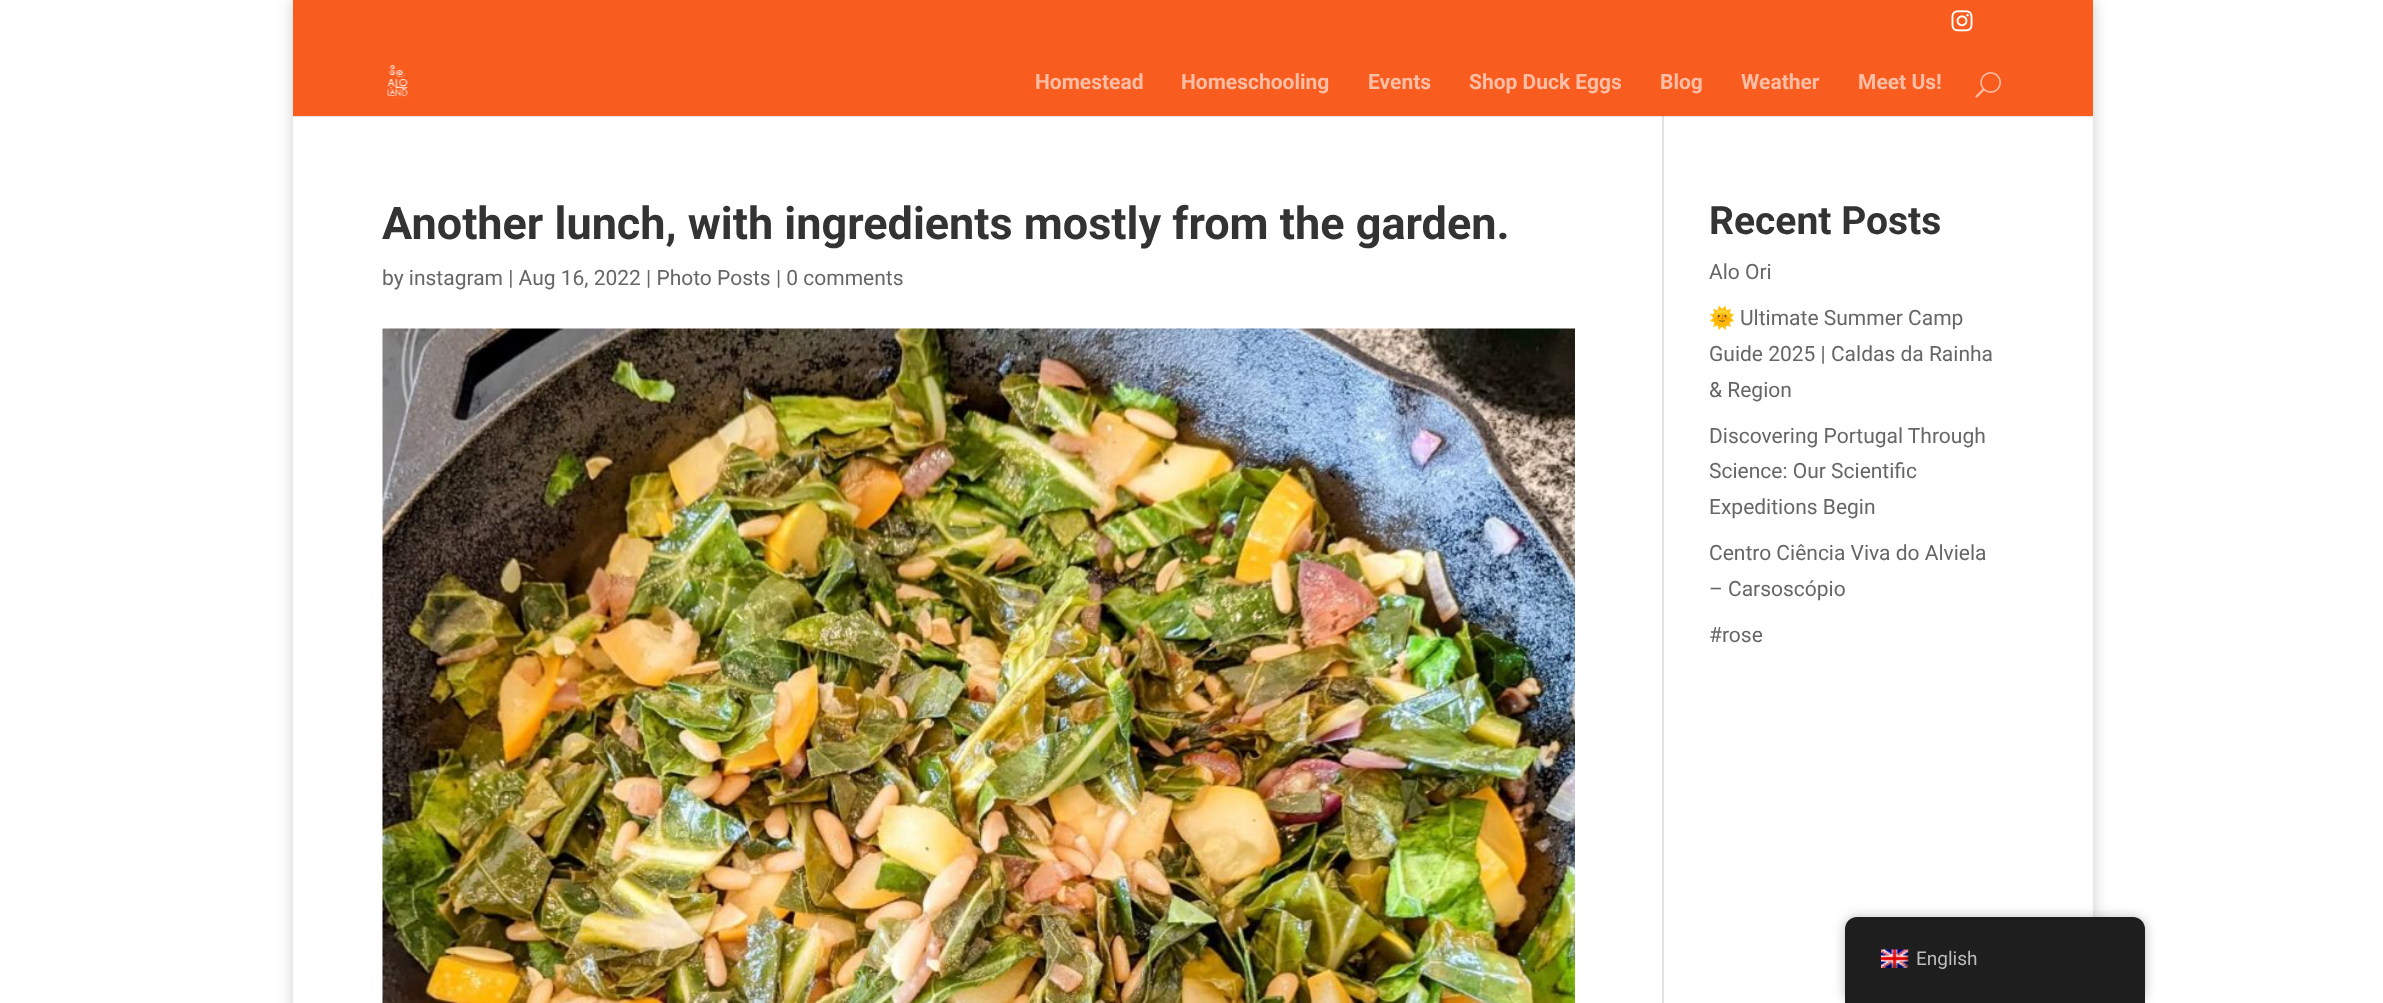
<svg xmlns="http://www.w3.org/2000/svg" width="2383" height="1003">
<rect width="100%" height="100%" fill="#fff"/>
<rect x="293" width="1800" height="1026" fill="#00000033" filter="blur(7.5px)"/>
<rect x="293" y="116" width="1800" height="887" fill="#fff"/>
<rect x="1662" y="114" width="2" height="889" fill="#e2e2e2"/>
<path d="M293 116v1h1800v-66h-1v65z" fill="#0000001a"/>
<rect x="293" width="1800" height="116" fill="#f85c1f"/>
<image x="1951" y="10" width="22" height="22" href="media/1.png"/>
<image x="387" y="65" width="21" height="34" href="media/2.png"/>
<text x="1035" y="89" style="font-family:Roboto;font-size:21px;font-weight:bold;fill:#fcbea5">Homestead</text>
<text x="1181" y="89" style="font-family:Roboto;font-size:21px;font-weight:bold;fill:#fcbea5">Homeschooling</text>
<text x="1368" y="89" style="font-family:Roboto;font-size:21px;font-weight:bold;fill:#fcbea5">Events</text>
<text x="1469" y="89" style="font-family:Roboto;font-size:21px;font-weight:bold;fill:#fcbea5">Shop Duck Eggs</text>
<text x="1660" y="89" style="font-family:Roboto;font-size:21px;font-weight:bold;fill:#fcbea5">Blog</text>
<text x="1741" y="89" style="font-family:Roboto;font-size:21px;font-weight:bold;fill:#fcbea5">Weather</text>
<text x="1858" y="89" style="font-family:Roboto;font-size:21px;font-weight:bold;fill:#fcbea5">Meet Us!</text>
<image x="1975" y="72" width="26" height="26" href="media/3.png"/>
<text x="382" y="239" style="font-family:Roboto;font-size:45px;font-weight:bold;fill:#333">Another lunch, with ingredients mostly from the garden.</text>
<text x="382" y="285" style="font-family:Roboto;font-size:21px;fill:#666">by instagram | Aug 16, 2022 | Photo Posts | 0 comments</text>
<image x="382" y="328" width="1193" height="675" href="media/4.png"/>
<text x="1709" y="234" style="font-family:Roboto;font-size:39px;font-weight:bold;fill:#333">Recent Posts</text>
<text x="1709" y="279" style="font-family:Roboto;font-size:21px;fill:#666">Alo Ori</text>
<text x="1709" y="325" style="font-family:Noto Color Emoji;font-size:21px;fill:#666">🌞</text>
<text x="1740" y="325" style="font-family:Roboto;font-size:21px;fill:#666">Ultimate Summer Camp</text>
<text x="1709" y="361" style="font-family:Roboto;font-size:21px;fill:#666">Guide 2025 | Caldas da Rainha</text>
<text x="1709" y="397" style="font-family:Roboto;font-size:21px;fill:#666">&amp; Region</text>
<text x="1709" y="443" style="font-family:Roboto;font-size:21px;fill:#666">Discovering Portugal Through</text>
<text x="1709" y="478" style="font-family:Roboto;font-size:21px;fill:#666">Science: Our Scientific</text>
<text x="1709" y="514" style="font-family:Roboto;font-size:21px;fill:#666">Expeditions Begin</text>
<text x="1709" y="560" style="font-family:Roboto;font-size:21px;fill:#666">Centro Ciência Viva do Alviela</text>
<text x="1709" y="596" style="font-family:Roboto;font-size:21px;fill:#666">– Carsoscópio</text>
<text x="1709" y="642" style="font-family:Roboto;font-size:21px;fill:#666">#rose</text>
<rect x="1845" y="917" width="300" height="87" rx="12" fill="#00000040" filter="blur(6px)"/>
<path d="M1857 917h276c6.5 0 12 5.5 12 12v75h-300v-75c0-6.5 5.5-12 12-12z" fill="#1e1e1e"/>
<image x="1881" y="949" width="28" height="19" href="media/5.png"/>
<text x="1916" y="965" style="font-family:Roboto;font-size:19px;fill:#bdbdbd">English</text>
</svg>
